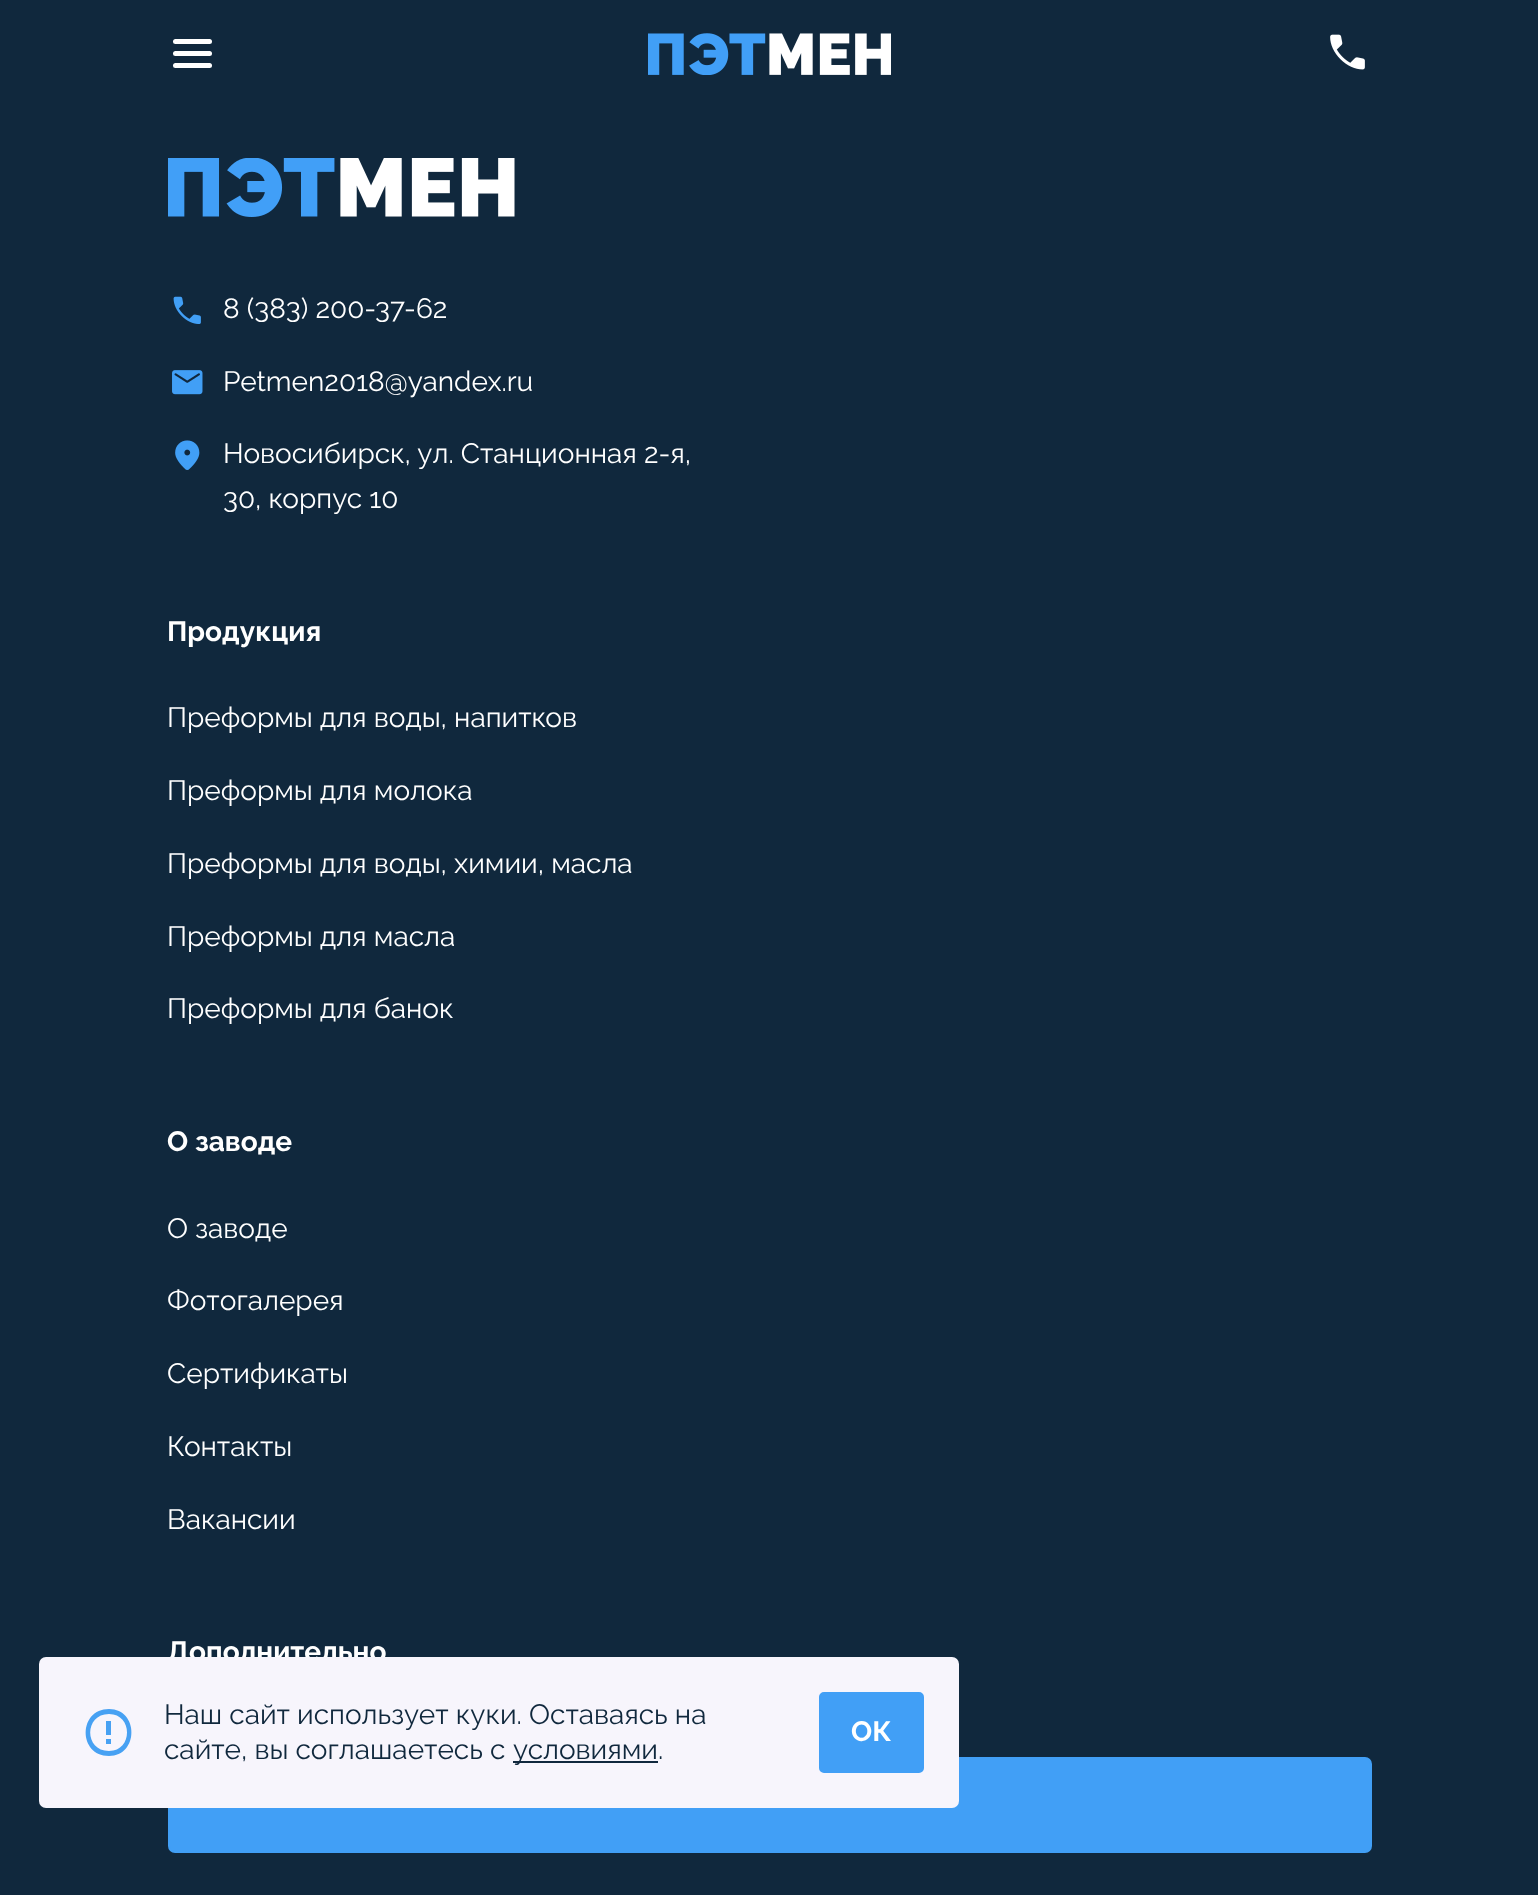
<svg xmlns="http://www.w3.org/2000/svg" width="1538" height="1895">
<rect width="100%" height="100%" fill="#10283d"/>
<rect x="173" y="39" width="39" height="5" rx="2.5" fill="#fff"/>
<rect x="173" y="51" width="39" height="5" rx="2.5" fill="#fff"/>
<rect x="173" y="63" width="39" height="5" rx="2.5" fill="#fff"/>
<image x="648" y="33" width="243" height="42" href="media/1.png"/>
<image x="1330" y="34" width="35" height="36" href="media/2.png"/>
<image x="168" y="158" width="347" height="59" href="media/3.png"/>
<image x="173" y="296" width="28" height="28" href="media/4.png"/>
<text x="223" y="318" style="font-family:Raleway;font-size:28px;fill:#fff">8 (383) 200-37-62</text>
<image x="172" y="370" width="31" height="25" href="media/5.png"/>
<text x="223" y="391" style="font-family:Raleway;font-size:28px;fill:#fff">Petmen2018@yandex.ru</text>
<image x="175" y="440" width="25" height="30" href="media/6.png"/>
<text x="223" y="463" style="font-family:Raleway;font-size:28px;fill:#fff">Новосибирск, ул. Станционная 2-я,</text>
<text x="223" y="508" style="font-family:Raleway;font-size:28px;fill:#fff">30, корпус 10</text>
<text x="167" y="641" style="font-family:Raleway;font-size:28px;font-weight:bold;fill:#fff">Продукция</text>
<text x="167" y="727" style="font-family:Raleway;font-size:28px;fill:#fff">Преформы для воды, напитков</text>
<text x="167" y="800" style="font-family:Raleway;font-size:28px;fill:#fff">Преформы для молока</text>
<text x="167" y="873" style="font-family:Raleway;font-size:28px;fill:#fff">Преформы для воды, химии, масла</text>
<text x="167" y="946" style="font-family:Raleway;font-size:28px;fill:#fff">Преформы для масла</text>
<text x="167" y="1018" style="font-family:Raleway;font-size:28px;fill:#fff">Преформы для банок</text>
<text x="167" y="1151" style="font-family:Raleway;font-size:28px;font-weight:bold;fill:#fff">О заводе</text>
<text x="167" y="1238" style="font-family:Raleway;font-size:28px;fill:#fff">О заводе</text>
<text x="167" y="1310" style="font-family:Raleway;font-size:28px;fill:#fff">Фотогалерея</text>
<text x="167" y="1383" style="font-family:Raleway;font-size:28px;fill:#fff">Сертификаты</text>
<text x="167" y="1456" style="font-family:Raleway;font-size:28px;fill:#fff">Контакты</text>
<text x="167" y="1529" style="font-family:Raleway;font-size:28px;fill:#fff">Вакансии</text>
<text x="167" y="1661" style="font-family:Raleway;font-size:28px;font-weight:bold;fill:#fff">Дополнительно</text>
<rect x="169" y="1758" width="1202" height="94" rx="6" fill="#419ff6" stroke="#419ff6" stroke-width="2"/>
<rect x="39" y="1657" width="920" height="151" rx="7" fill="#f7f5fc"/>
<path d="M109 1709c-31 0-31 47 0 47c30 0 30-47 0-47zm0 5c24 0 24 37 0 37c-25 0-25-37 0-37zm-3 7v14h5v-14zm0 18v5h5v-5z" fill="#47a1f3"/>
<text x="164" y="1724" style="font-family:Raleway;font-size:28px;fill:#10283d">Наш сайт использует куки. Оставаясь на</text>
<text x="164" y="1759" style="font-family:Raleway;font-size:28px;fill:#10283d">сайте, вы соглашаетесь c</text>
<rect x="513" y="1761" width="145" height="2" fill="#10283d"/>
<text x="513" y="1759" style="font-family:Raleway;font-size:28px;fill:#10283d">условиями.</text>
<rect x="820" y="1693" width="103" height="79" rx="4" fill="#419ff6" stroke="#419ff6" stroke-width="2"/>
<text x="851" y="1741" style="font-family:Raleway;font-size:28px;font-weight:bold;fill:#fff">ОК</text>
</svg>
